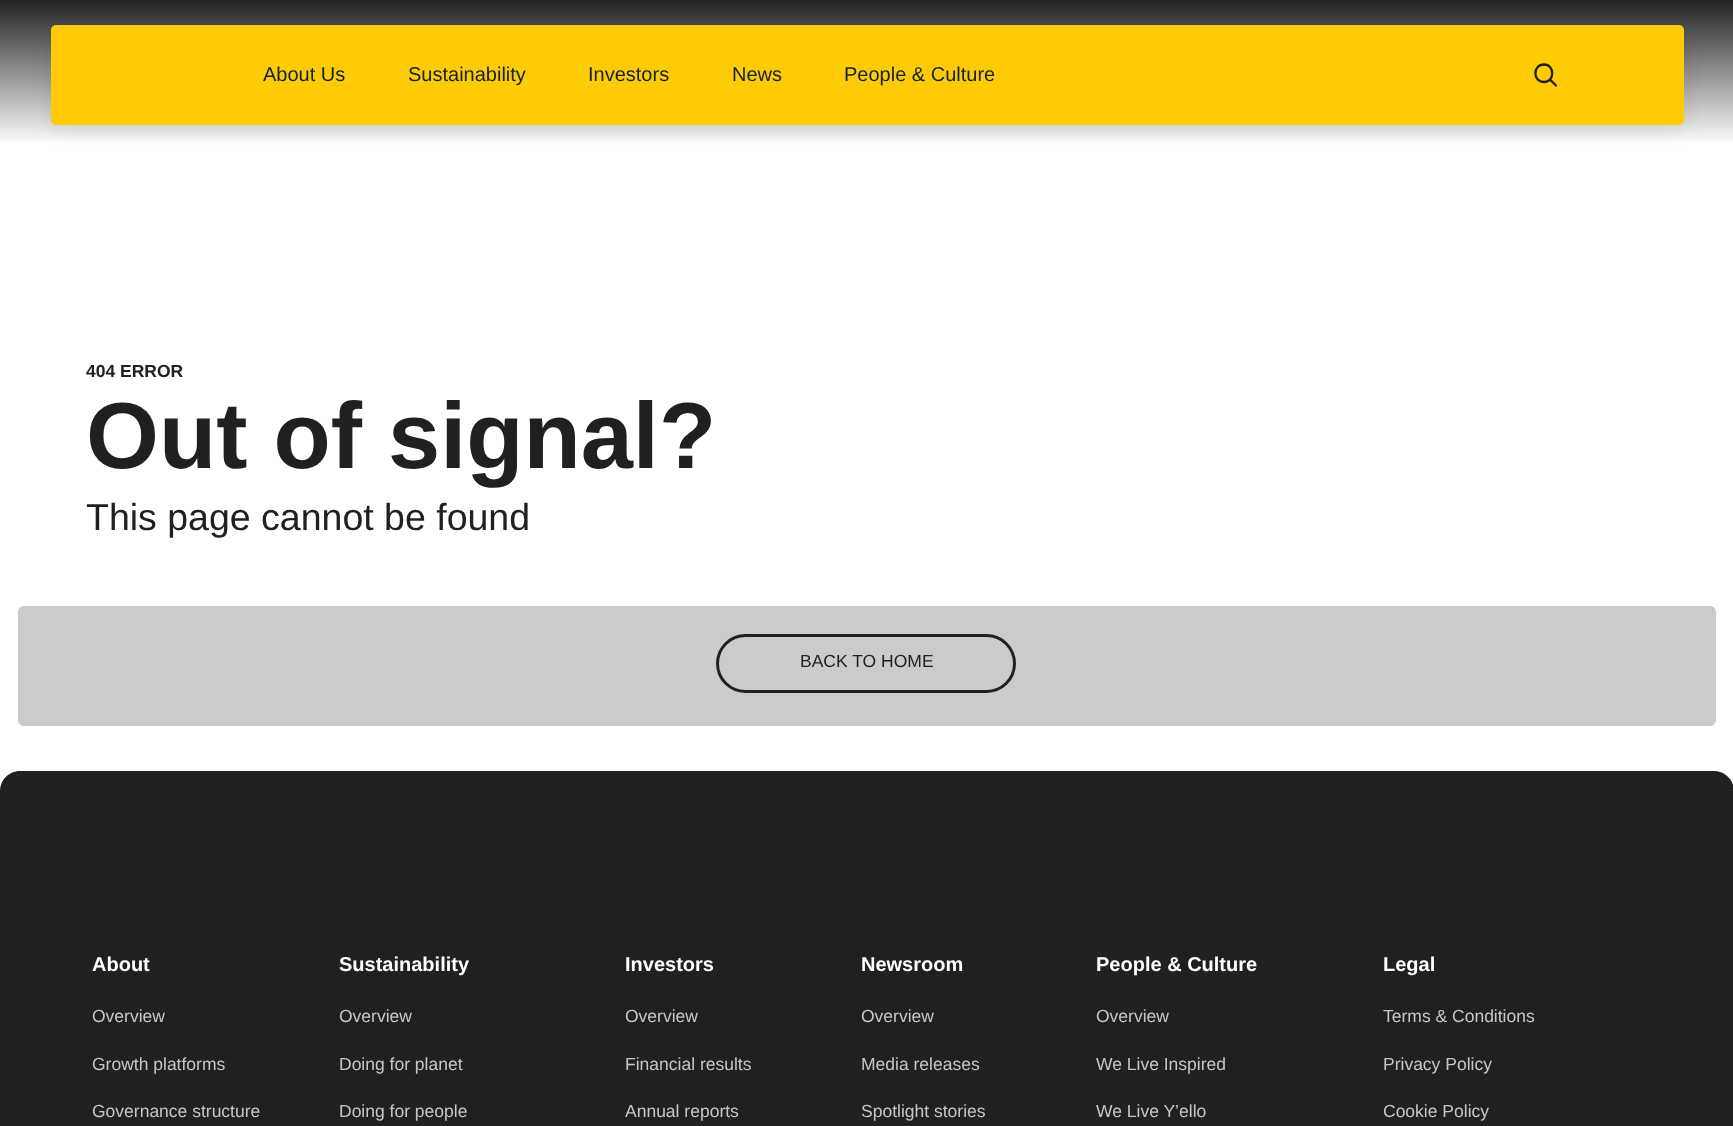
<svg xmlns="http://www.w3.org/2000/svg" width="1733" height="1126">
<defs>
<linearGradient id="g1" gradientUnits="userSpaceOnUse" x1="867" y1="0" x2="867" y2="145"><stop offset="0" stop-color="#222"/><stop offset="1" stop-color="#fff"/></linearGradient>
</defs>
<rect width="100%" height="100%" fill="#fff"/>
<rect width="1733" height="143" fill="url(#g1)"/>
<rect x="51" y="30" width="1633" height="100" rx="5" fill="#00000014" filter="blur(10px)"/>
<rect x="51" y="25" width="1633" height="100" rx="5" fill="#ffcb05"/>
<text x="263" y="81" style="font-family:Liberation Sans;font-size:20px;fill:#122331">About Us</text>
<text x="408" y="81" style="font-family:Liberation Sans;font-size:20px;fill:#122331">Sustainability</text>
<text x="588" y="81" style="font-family:Liberation Sans;font-size:20px;fill:#122331">Investors</text>
<text x="732" y="81" style="font-family:Liberation Sans;font-size:20px;fill:#122331">News</text>
<text x="844" y="81" style="font-family:Liberation Sans;font-size:20px;fill:#122331">People &amp; Culture</text>
<path d="M1544 82c11 0 11-17.5 0-17.5c-11.5 0-11.5 17.5 0 17.5zm12 3.5l-6-6" fill="none" stroke="#202020" stroke-width="2.3" stroke-linecap="round" stroke-linejoin="round"/>
<text x="86" y="377" style="font-family:Liberation Sans;font-size:17.5px;font-weight:bold;fill:#202020">404 ERROR</text>
<text x="86" y="468" style="font-family:Liberation Sans;font-size:93.75px;font-weight:bold;fill:#202020">Out of signal?</text>
<text x="86" y="530" style="font-family:Liberation Sans;font-size:37.5px;fill:#202020">This page cannot be found</text>
<rect x="18" y="606" width="1698" height="120" rx="6" fill="#cbcbcb"/>
<rect x="717.5" y="635.5" width="297" height="56" rx="28" fill="none" stroke="#202020" stroke-width="3"/>
<text x="800" y="667" style="font-family:Liberation Sans;font-size:17.5px;fill:#202020">BACK TO HOME</text>
<path d="M20 771h1694c11 0 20 9 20 20v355h-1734v-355c0-11 9-20 20-20z" fill="#202020"/>
<text x="92" y="971" style="font-family:Liberation Sans;font-size:20px;font-weight:bold;fill:#fff">About</text>
<text x="92" y="1022" style="font-family:Liberation Sans;font-size:17.5px;fill:#c7c7c7">Overview</text>
<text x="92" y="1070" style="font-family:Liberation Sans;font-size:17.5px;fill:#c7c7c7">Growth platforms</text>
<text x="92" y="1117" style="font-family:Liberation Sans;font-size:17.5px;fill:#c7c7c7">Governance structure</text>
<text x="339" y="971" style="font-family:Liberation Sans;font-size:20px;font-weight:bold;fill:#fff">Sustainability</text>
<text x="339" y="1022" style="font-family:Liberation Sans;font-size:17.5px;fill:#c7c7c7">Overview</text>
<text x="339" y="1070" style="font-family:Liberation Sans;font-size:17.5px;fill:#c7c7c7">Doing for planet</text>
<text x="339" y="1117" style="font-family:Liberation Sans;font-size:17.5px;fill:#c7c7c7">Doing for people</text>
<text x="625" y="971" style="font-family:Liberation Sans;font-size:20px;font-weight:bold;fill:#fff">Investors</text>
<text x="625" y="1022" style="font-family:Liberation Sans;font-size:17.5px;fill:#c7c7c7">Overview</text>
<text x="625" y="1070" style="font-family:Liberation Sans;font-size:17.5px;fill:#c7c7c7">Financial results</text>
<text x="625" y="1117" style="font-family:Liberation Sans;font-size:17.5px;fill:#c7c7c7">Annual reports</text>
<text x="861" y="971" style="font-family:Liberation Sans;font-size:20px;font-weight:bold;fill:#fff">Newsroom</text>
<text x="861" y="1022" style="font-family:Liberation Sans;font-size:17.5px;fill:#c7c7c7">Overview</text>
<text x="861" y="1070" style="font-family:Liberation Sans;font-size:17.5px;fill:#c7c7c7">Media releases</text>
<text x="861" y="1117" style="font-family:Liberation Sans;font-size:17.5px;fill:#c7c7c7">Spotlight stories</text>
<text x="1096" y="971" style="font-family:Liberation Sans;font-size:20px;font-weight:bold;fill:#fff">People &amp; Culture</text>
<text x="1096" y="1022" style="font-family:Liberation Sans;font-size:17.5px;fill:#c7c7c7">Overview</text>
<text x="1096" y="1070" style="font-family:Liberation Sans;font-size:17.5px;fill:#c7c7c7">We Live Inspired</text>
<text x="1096" y="1117" style="font-family:Liberation Sans;font-size:17.5px;fill:#c7c7c7">We Live Y’ello</text>
<text x="1383" y="971" style="font-family:Liberation Sans;font-size:20px;font-weight:bold;fill:#fff">Legal</text>
<text x="1383" y="1022" style="font-family:Liberation Sans;font-size:17.5px;fill:#c7c7c7">Terms &amp; Conditions</text>
<text x="1383" y="1070" style="font-family:Liberation Sans;font-size:17.5px;fill:#c7c7c7">Privacy Policy</text>
<text x="1383" y="1117" style="font-family:Liberation Sans;font-size:17.5px;fill:#c7c7c7">Cookie Policy</text>
</svg>
